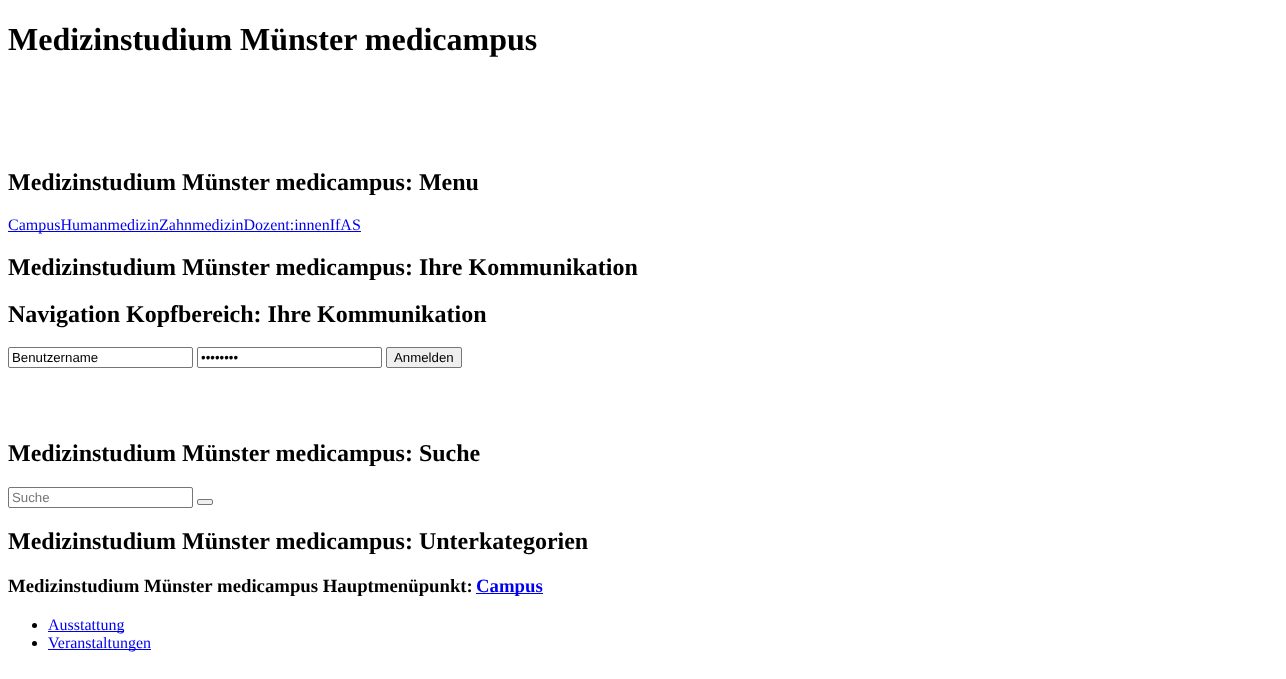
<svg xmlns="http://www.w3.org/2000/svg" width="1286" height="679">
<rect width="100%" height="100%" fill="#fff"/>
<text x="8" y="50" style="font-family:Liberation Serif;font-size:32px;font-weight:bold;fill:#000">Medizinstudium Münster medicampus</text>
<text x="8" y="190" style="font-family:Liberation Serif;font-size:24px;font-weight:bold;fill:#000">Medizinstudium Münster medicampus: Menu</text>
<rect x="8" y="231" width="353" height="1" fill="#00e"/>
<text x="8" y="230" style="font-family:Liberation Serif;font-size:16px;fill:#00e">CampusHumanmedizinZahnmedizinDozent:innenIfAS</text>
<text x="8" y="275" style="font-family:Liberation Serif;font-size:24px;font-weight:bold;fill:#000">Medizinstudium Münster medicampus: Ihre Kommunikation</text>
<text x="8" y="322" style="font-family:Liberation Serif;font-size:24px;font-weight:bold;fill:#000">Navigation Kopfbereich: Ihre Kommunikation</text>
<rect x="8.5" y="347.5" width="184" height="20" rx="1.5" fill="none" stroke="#767676"/>
<text x="12" y="362" style="font-family:Liberation Sans;font-size:13.25px;fill:#000">Benutzername</text>
<rect x="197.5" y="347.5" width="184" height="20" rx="1.5" fill="none" stroke="#767676"/>
<text x="201" y="362" style="font-family:Liberation Sans;font-size:13.25px;fill:#000">••••••••</text>
<rect x="386.5" y="347.5" width="75" height="20" rx="1.5" fill="#efefef" stroke="#767676"/>
<text x="394" y="362" style="font-family:Liberation Sans;font-size:13.25px;fill:#000">Anmelden</text>
<text x="8" y="461" style="font-family:Liberation Serif;font-size:24px;font-weight:bold;fill:#000">Medizinstudium Münster medicampus: Suche</text>
<rect x="8.5" y="487.5" width="184" height="20" rx="1.5" fill="none" stroke="#767676"/>
<text x="12" y="502" style="font-family:Liberation Sans;font-size:13.25px;fill:#757575">Suche</text>
<rect x="197.5" y="499.5" width="15" height="5" rx="1.5" fill="#efefef" stroke="#767676"/>
<text x="8" y="549" style="font-family:Liberation Serif;font-size:24px;font-weight:bold;fill:#000">Medizinstudium Münster medicampus: Unterkategorien</text>
<text x="8" y="592" style="font-family:Liberation Serif;font-size:18.75px;font-weight:bold;fill:#000">Medizinstudium Münster medicampus Hauptmenüpunkt:</text>
<rect x="476" y="593" width="67" height="1" fill="#00e"/>
<text x="476" y="592" style="font-family:Liberation Serif;font-size:18.75px;font-weight:bold;fill:#00e">Campus</text>
<circle cx="34.5" cy="625.5" r="2.5" fill="#000"/>
<rect x="48" y="631" width="76" height="1" fill="#00e"/>
<text x="48" y="630" style="font-family:Liberation Serif;font-size:16px;fill:#00e">Ausstattung</text>
<circle cx="34.5" cy="643.5" r="2.5" fill="#000"/>
<rect x="48" y="649" width="103" height="1" fill="#00e"/>
<text x="48" y="648" style="font-family:Liberation Serif;font-size:16px;fill:#00e">Veranstaltungen</text>
</svg>
